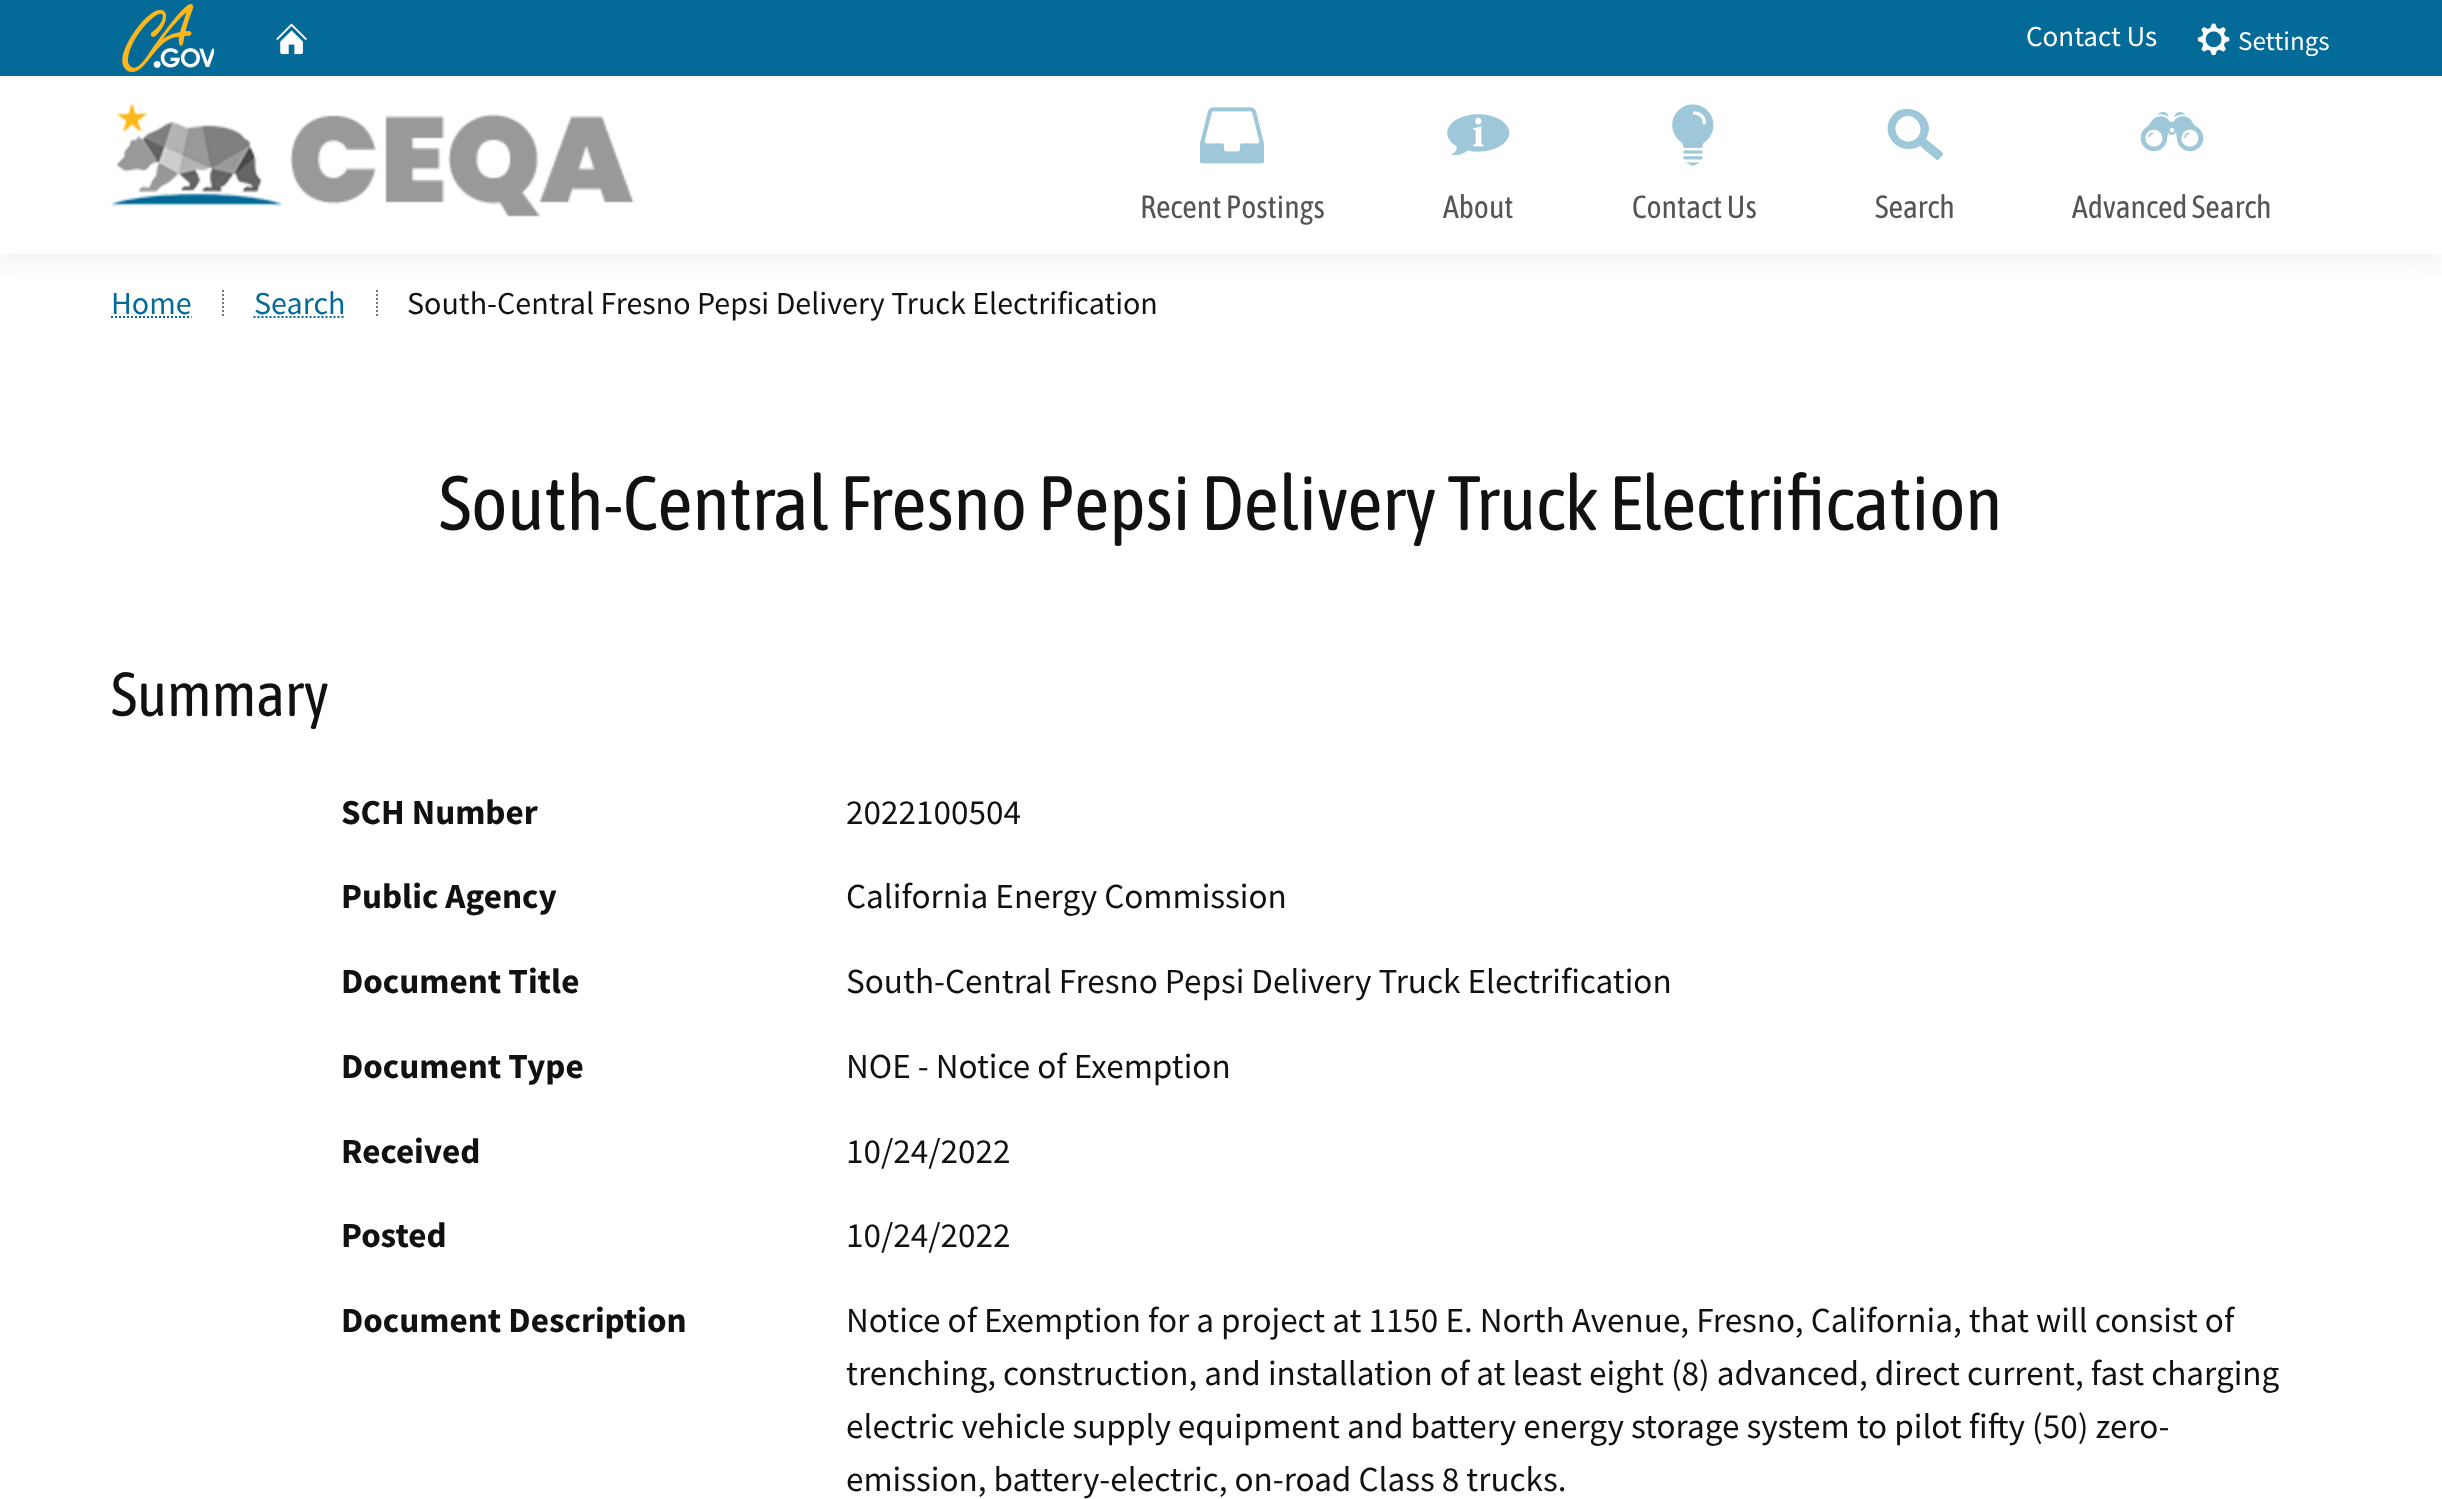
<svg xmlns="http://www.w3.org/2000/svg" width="2442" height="1499">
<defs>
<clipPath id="clip1"><rect x="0" y="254" width="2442" height="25"/></clipPath>
</defs>
<rect width="100%" height="100%" fill="#fff"/>
<path d="M223 290v26" fill="none" stroke="#777" stroke-width="2" stroke-dasharray="2 2"/>
<path d="M377 290v26" fill="none" stroke="#777" stroke-width="2" stroke-dasharray="2 2"/>
<g clip-path="url(#clip1)">
<rect width="2442" height="254" fill="#bdbdbd66" filter="blur(15px)"/>
</g>
<rect width="2442" height="76" fill="#046b99"/>
<image x="122" y="4" width="92" height="68" href="media/1.png"/>
<image x="276" y="23" width="31" height="32" href="media/2.png"/>
<text x="2026" y="46" style="font-family:Source Sans Pro;font-size:29px;fill:#fff">Contact Us</text>
<image x="2197" y="23" width="33" height="33" href="media/3.png"/>
<text x="2238" y="50" style="font-family:Source Sans Pro;font-size:27px;fill:#fff">Settings</text>
<image x="111" y="103" width="524" height="114" href="media/4.png"/>
<image x="1200" y="107" width="64" height="57" href="media/5.png"/>
<text x="1140" y="218" style="font-family:Asap Condensed;font-size:32px;fill:#555">Recent Postings</text>
<image x="1447" y="114" width="63" height="42" href="media/6.png"/>
<text x="1443" y="218" style="font-family:Asap Condensed;font-size:32px;fill:#555">About</text>
<image x="1672" y="104" width="42" height="62" href="media/7.png"/>
<text x="1632" y="218" style="font-family:Asap Condensed;font-size:32px;fill:#555">Contact Us</text>
<path d="M1942 152l-16-13c14-24-25-44-37-18c-2 6-2 12 1 17c6 11 20 14 30 8l12 10c5 4 5 6 9 1c2-2 3-3 1-5zm-25-14c-12 11-29-6-18-18c12-12 29 6 18 18z" fill="#9fc7da"/>
<text x="1875" y="218" style="font-family:Asap Condensed;font-size:32px;fill:#555">Search</text>
<image x="2140" y="111" width="64" height="41" href="media/8.png"/>
<text x="2072" y="218" style="font-family:Asap Condensed;font-size:32px;fill:#555">Advanced Search</text>
<text x="111" y="314" style="font-family:Source Sans Pro;font-size:32px;fill:#046b99">Home</text>
<path d="M111 317h80.5" fill="none" stroke="#046b99" stroke-width="2" stroke-dasharray="2 2"/>
<text x="254" y="314" style="font-family:Source Sans Pro;font-size:32px;fill:#046b99">Search</text>
<path d="M253.5 317h91.5" fill="none" stroke="#046b99" stroke-width="2" stroke-dasharray="2 2"/>
<text x="407" y="314" style="font-family:Source Sans Pro;font-size:32px;fill:#111">South-Central Fresno Pepsi Delivery Truck Electrification</text>
<text x="439" y="530" style="font-family:Asap Condensed;font-size:76.8px;fill:#111">South-Central Fresno Pepsi Delivery Truck Electrification</text>
<text x="111" y="716" style="font-family:Asap Condensed;font-size:62px;fill:#111">Summary</text>
<text x="341" y="824" style="font-family:Source Sans Pro;font-size:35.2px;font-weight:bold;fill:#111">SCH Number</text>
<text x="846" y="824" style="font-family:Source Sans Pro;font-size:35.2px;fill:#111">2022100504</text>
<text x="341" y="908" style="font-family:Source Sans Pro;font-size:35.2px;font-weight:bold;fill:#111">Public Agency</text>
<text x="846" y="908" style="font-family:Source Sans Pro;font-size:35.2px;fill:#111">California Energy Commission</text>
<text x="341" y="993" style="font-family:Source Sans Pro;font-size:35.2px;font-weight:bold;fill:#111">Document Title</text>
<text x="846" y="993" style="font-family:Source Sans Pro;font-size:35.2px;fill:#111">South-Central Fresno Pepsi Delivery Truck Electrification</text>
<text x="341" y="1078" style="font-family:Source Sans Pro;font-size:35.2px;font-weight:bold;fill:#111">Document Type</text>
<text x="846" y="1078" style="font-family:Source Sans Pro;font-size:35.2px;fill:#111">NOE - Notice of Exemption</text>
<text x="341" y="1163" style="font-family:Source Sans Pro;font-size:35.2px;font-weight:bold;fill:#111">Received</text>
<text x="846" y="1163" style="font-family:Source Sans Pro;font-size:35.2px;fill:#111">10/24/2022</text>
<text x="341" y="1247" style="font-family:Source Sans Pro;font-size:35.2px;font-weight:bold;fill:#111">Posted</text>
<text x="846" y="1247" style="font-family:Source Sans Pro;font-size:35.2px;fill:#111">10/24/2022</text>
<text x="341" y="1332" style="font-family:Source Sans Pro;font-size:35.2px;font-weight:bold;fill:#111">Document Description</text>
<text x="846" y="1332" style="font-family:Source Sans Pro;font-size:35.2px;fill:#111">Notice of Exemption for a project at 1150 E. North Avenue, Fresno, California, that will consist of</text>
<text x="846" y="1385" style="font-family:Source Sans Pro;font-size:35.2px;fill:#111">trenching, construction, and installation of at least eight (8) advanced, direct current, fast charging</text>
<text x="846" y="1438" style="font-family:Source Sans Pro;font-size:35.2px;fill:#111">electric vehicle supply equipment and battery energy storage system to pilot fifty (50) zero-</text>
<text x="846" y="1491" style="font-family:Source Sans Pro;font-size:35.2px;fill:#111">emission, battery-electric, on-road Class 8 trucks.</text>
</svg>
